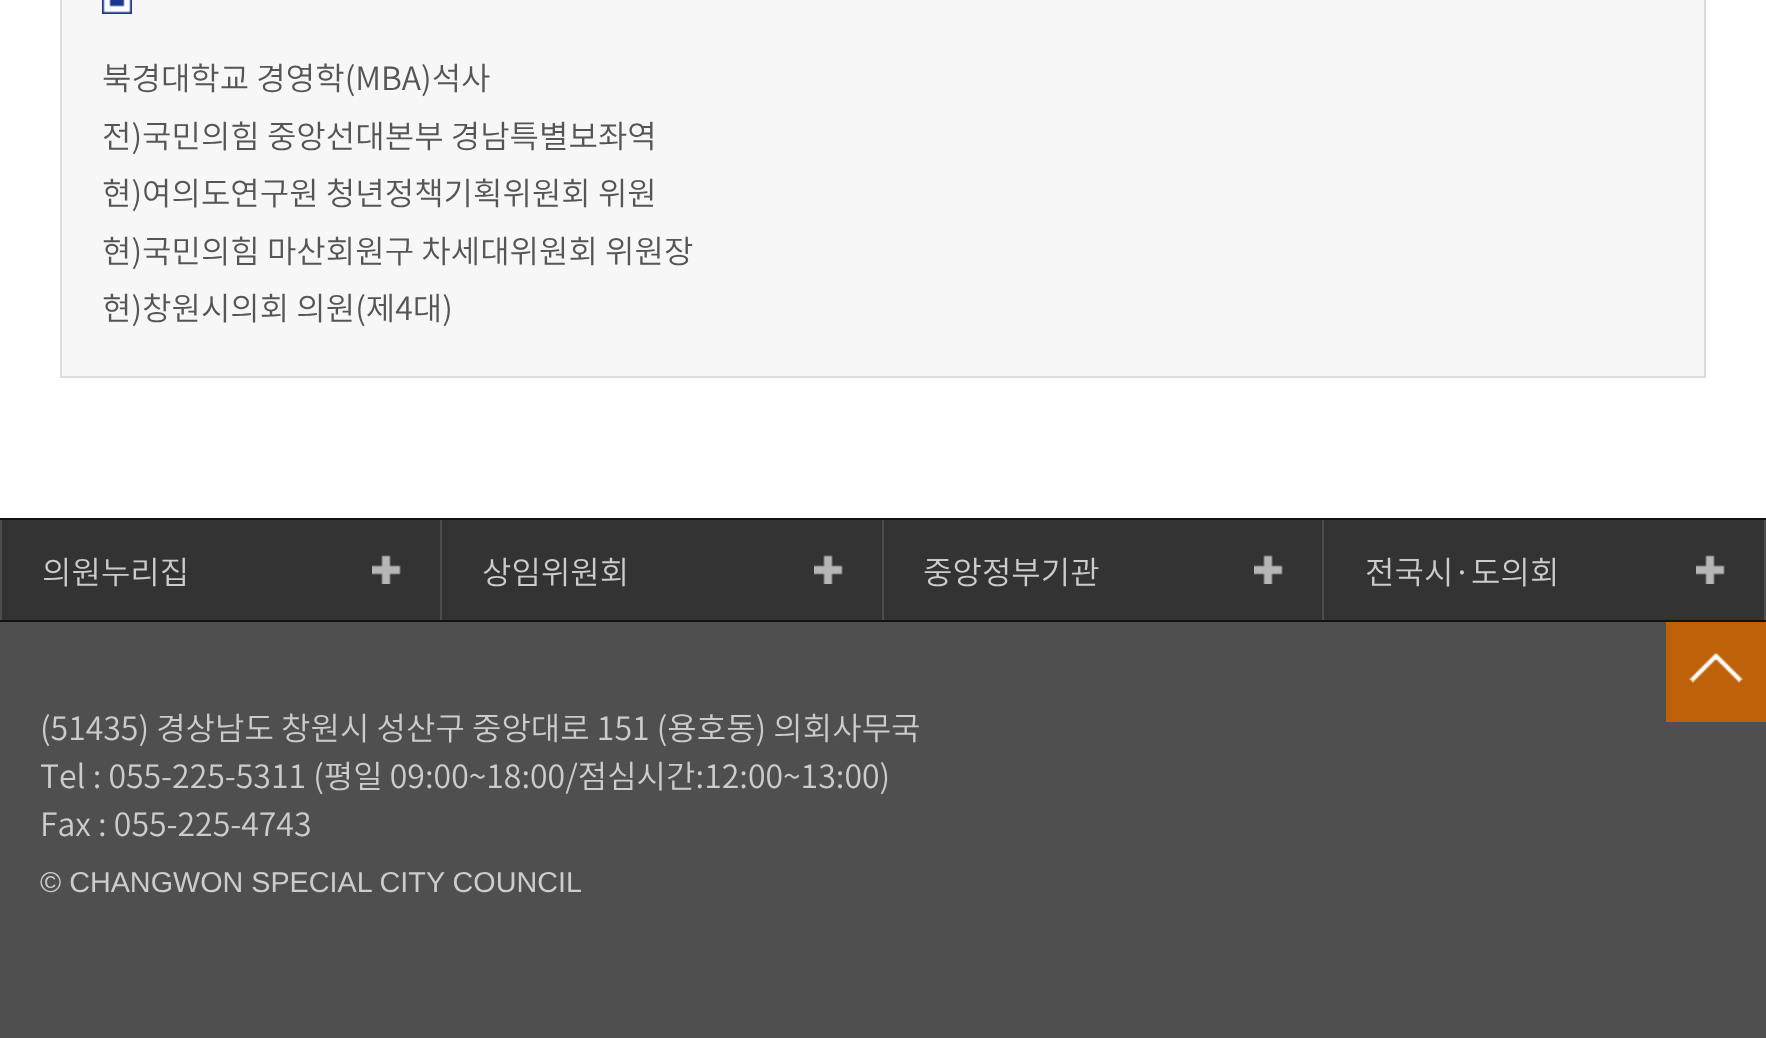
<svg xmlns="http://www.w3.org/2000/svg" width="1766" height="1038">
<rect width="100%" height="100%" fill="#fff"/>
<rect x="61" y="-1" width="1644" height="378" fill="#f7f7f7" stroke="#ddd" stroke-width="2"/>
<image x="102" y="0" width="30" height="14" href="media/1.png"/>
<text x="102" y="90" style="font-family:Noto Sans KR;font-size:32px;font-weight:300;fill:#555">북경대학교 경영학(MBA)석사</text>
<text x="102" y="148" style="font-family:Noto Sans KR;font-size:32px;font-weight:300;fill:#555">전)국민의힘 중앙선대본부 경남특별보좌역</text>
<text x="102" y="205" style="font-family:Noto Sans KR;font-size:32px;font-weight:300;fill:#555">현)여의도연구원 청년정책기획위원회 위원</text>
<text x="102" y="263" style="font-family:Noto Sans KR;font-size:32px;font-weight:300;fill:#555">현)국민의힘 마산회원구 차세대위원회 위원장</text>
<text x="102" y="320" style="font-family:Noto Sans KR;font-size:32px;font-weight:300;fill:#555">현)창원시의회 의원(제4대)</text>
<rect y="622" width="1766" height="416" fill="#4f4f4f"/>
<rect x="2" y="520" width="1762" height="100" fill="#333"/>
<rect y="518" width="1766" height="2" fill="#111"/>
<rect y="620" width="1766" height="2" fill="#111"/>
<rect x="440" y="520" width="2" height="100" fill="#4d4d4d"/>
<rect y="520" width="2" height="100" fill="#4d4d4d"/>
<image x="372" y="555" width="29" height="29" href="media/2.png"/>
<text x="42" y="584" style="font-family:Noto Sans KR;font-size:32px;font-weight:300;fill:#ccc">의원누리집</text>
<rect x="882" y="520" width="2" height="100" fill="#4d4d4d"/>
<image x="814" y="555" width="29" height="29" href="media/2.png"/>
<text x="482" y="584" style="font-family:Noto Sans KR;font-size:32px;font-weight:300;fill:#ccc">상임위원회</text>
<rect x="1322" y="520" width="2" height="100" fill="#4d4d4d"/>
<image x="1254" y="555" width="29" height="29" href="media/2.png"/>
<text x="923" y="584" style="font-family:Noto Sans KR;font-size:32px;font-weight:300;fill:#ccc">중앙정부기관</text>
<rect x="1764" y="520" width="2" height="100" fill="#4d4d4d"/>
<image x="1696" y="555" width="29" height="29" href="media/2.png"/>
<text x="1365" y="584" style="font-family:Noto Sans KR;font-size:32px;font-weight:300;fill:#ccc">전국시·도의회</text>
<image x="1666" y="622" width="100" height="100" href="media/3.png"/>
<text x="40" y="740" style="font-family:Noto Sans KR;font-size:32px;font-weight:300;fill:#ccc">(51435) 경상남도 창원시 성산구 중앙대로 151 (용호동) 의회사무국</text>
<text x="40" y="788" style="font-family:Noto Sans KR;font-size:32px;font-weight:300;fill:#ccc">Tel : 055-225-5311 (평일 09:00~18:00/점심시간:12:00~13:00)</text>
<text x="40" y="836" style="font-family:Noto Sans KR;font-size:32px;font-weight:300;fill:#ccc">Fax : 055-225-4743</text>
<text x="40" y="892" style="font-family:Liberation Sans;font-size:28.75px;fill:#ccc">© CHANGWON SPECIAL CITY COUNCIL</text>
</svg>
